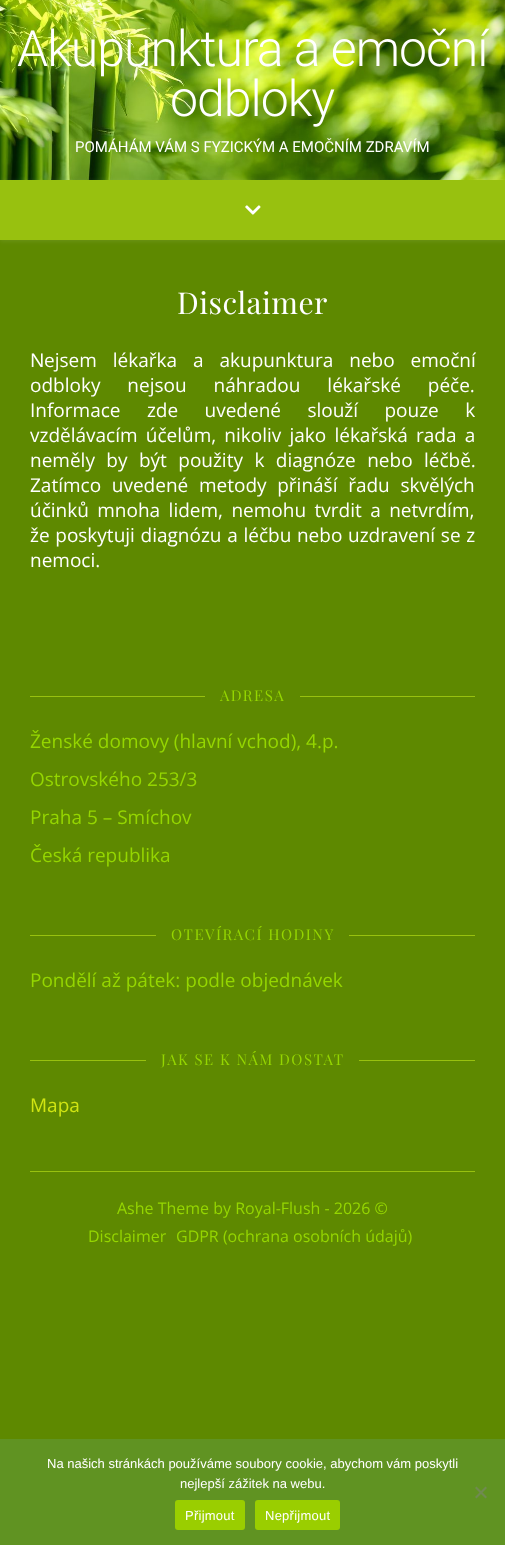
<svg xmlns="http://www.w3.org/2000/svg" width="505" height="1545">
<rect width="100%" height="100%" fill="#5e8900"/>
<image x="0" y="0" width="505" height="180" href="media/1.png"/>
<text x="17" y="66" style="font-family:Roboto;font-size:50px;font-weight:300;letter-spacing:-1px;fill:#fff">Akupunktura a emoční</text>
<text x="170" y="116" style="font-family:Roboto;font-size:50px;font-weight:300;letter-spacing:-1px;fill:#fff">odbloky</text>
<text x="75" y="152" style="font-family:Roboto;font-size:15px;fill:#fff">POMÁHÁM VÁM S FYZICKÝM A EMOČNÍM ZDRAVÍM</text>
<rect y="181" width="505" height="60" fill="#ffffff1a" filter="blur(2.5px)"/>
<rect y="180" width="505" height="60" fill="#98c10f"/>
<image x="245" y="205" width="16" height="10" href="media/2.png"/>
<text x="177" y="314" style="font-family:Playfair Display;font-size:30px;letter-spacing:0.5px;fill:#fff">Disclaimer</text>
<text x="30" y="367" style="font-family:Noto Sans;font-size:19px;fill:#fff">N</text>
<text x="44" y="367" word-spacing="11" style="font-family:Open Sans;font-size:19px;fill:#fff">ejsem lékařka a akupunktura nebo emoční</text>
<text x="30" y="392" word-spacing="22" style="font-family:Open Sans;font-size:19px;fill:#fff">odbloky nejsou náhradou lékařské péče.</text>
<text x="30" y="417" word-spacing="21.5" style="font-family:Open Sans;font-size:19px;fill:#fff">Informace zde uvedené slouží pouze k</text>
<text x="30" y="442" word-spacing="3.25" style="font-family:Open Sans;font-size:19px;fill:#fff">vzdělávacím účelům, nikoliv jako lékařská rada a</text>
<text x="30" y="467" word-spacing="6.5" style="font-family:Open Sans;font-size:19px;fill:#fff">neměly by být použity k diagnóze nebo léčbě.</text>
<text x="30" y="492" word-spacing="5.75" style="font-family:Open Sans;font-size:19px;fill:#fff">Zatímco uvedené metody přináší řadu skvělých</text>
<text x="30" y="517" word-spacing="3.5" style="font-family:Open Sans;font-size:19px;fill:#fff">účinků mnoha lidem, nemohu tvrdit a netvrdím,</text>
<text x="30" y="542" word-spacing="0.75" style="font-family:Open Sans;font-size:19px;fill:#fff">že poskytuji diagnózu a léčbu nebo uzdravení se z</text>
<text x="30" y="567" style="font-family:Open Sans;font-size:19px;fill:#fff">nemoci.</text>
<rect x="30" y="1171" width="445" height="1" fill="#98c10f"/>
<rect x="30" y="696" width="175" height="1" fill="#98c10f"/>
<text x="220" y="701" style="font-family:Playfair Display;font-size:15px;letter-spacing:1.5px;fill:#95d600">ADRESA</text>
<rect x="300" y="696" width="175" height="1" fill="#98c10f"/>
<text x="30" y="748" style="font-family:Open Sans;font-size:19px;fill:#95d600">Ženské domovy (hlavní vchod), 4.p.</text>
<text x="30" y="786" style="font-family:Open Sans;font-size:19px;fill:#95d600">Ostrovského 253/3</text>
<text x="30" y="824" style="font-family:Open Sans;font-size:19px;fill:#95d600">Praha 5 – Smíchov</text>
<text x="30" y="862" style="font-family:Open Sans;font-size:19px;fill:#95d600">Česká republika</text>
<rect x="30" y="935" width="126" height="1" fill="#98c10f"/>
<text x="171" y="940" style="font-family:Playfair Display;font-size:15px;letter-spacing:1.5px;fill:#95d600">OTEVÍRACÍ HODINY</text>
<rect x="349" y="935" width="126" height="1" fill="#98c10f"/>
<text x="30" y="987" style="font-family:Open Sans;font-size:19px;fill:#95d600">Pondělí až pátek: podle objednávek</text>
<rect x="30" y="1060" width="116" height="1" fill="#98c10f"/>
<text x="161" y="1065" style="font-family:Playfair Display;font-size:15px;letter-spacing:1.5px;fill:#95d600">JAK SE K NÁM DOSTAT</text>
<rect x="359" y="1060" width="116" height="1" fill="#98c10f"/>
<text x="30" y="1112" style="font-family:Open Sans;font-size:19px;fill:#d0e512">Mapa</text>
<text x="117" y="1214" style="font-family:Open Sans;font-size:16px;fill:#95d600">Ashe Theme by Royal-Flush - 2026 ©</text>
<text x="88" y="1242" style="font-family:Open Sans;font-size:16px;fill:#95d600">Disclaimer</text>
<text x="176" y="1242" style="font-family:Open Sans;font-size:16px;fill:#95d600">GDPR (ochrana osobních údajů)</text>
<rect y="1439" width="505" height="106" fill="#609322"/>
<text x="47" y="1468" style="font-family:Liberation Sans;font-size:13px;fill:#fff">Na našich stránkách používáme soubory cookie, abychom vám poskytli</text>
<text x="180" y="1488" style="font-family:Liberation Sans;font-size:13px;fill:#fff">nejlepší zážitek na webu.</text>
<path d="M485.5 1486.5l1.5 1.5l-10.5 10.5l-1.5-1.5z" fill="#708a51"/>
<path d="M475 1488l1.5-1.5l10.5 10.5l-1.5 1.5z" fill="#708a51"/>
<rect x="175" y="1500" width="70" height="30" rx="3" fill="#9ace00"/>
<text x="185" y="1520" style="font-family:Liberation Sans;font-size:13px;letter-spacing:0.25px;fill:#fff">Přijmout</text>
<rect x="255" y="1500" width="85" height="30" rx="3" fill="#9ace00"/>
<text x="265" y="1520" style="font-family:Liberation Sans;font-size:13px;letter-spacing:0.25px;fill:#fff">Nepřijmout</text>
</svg>
